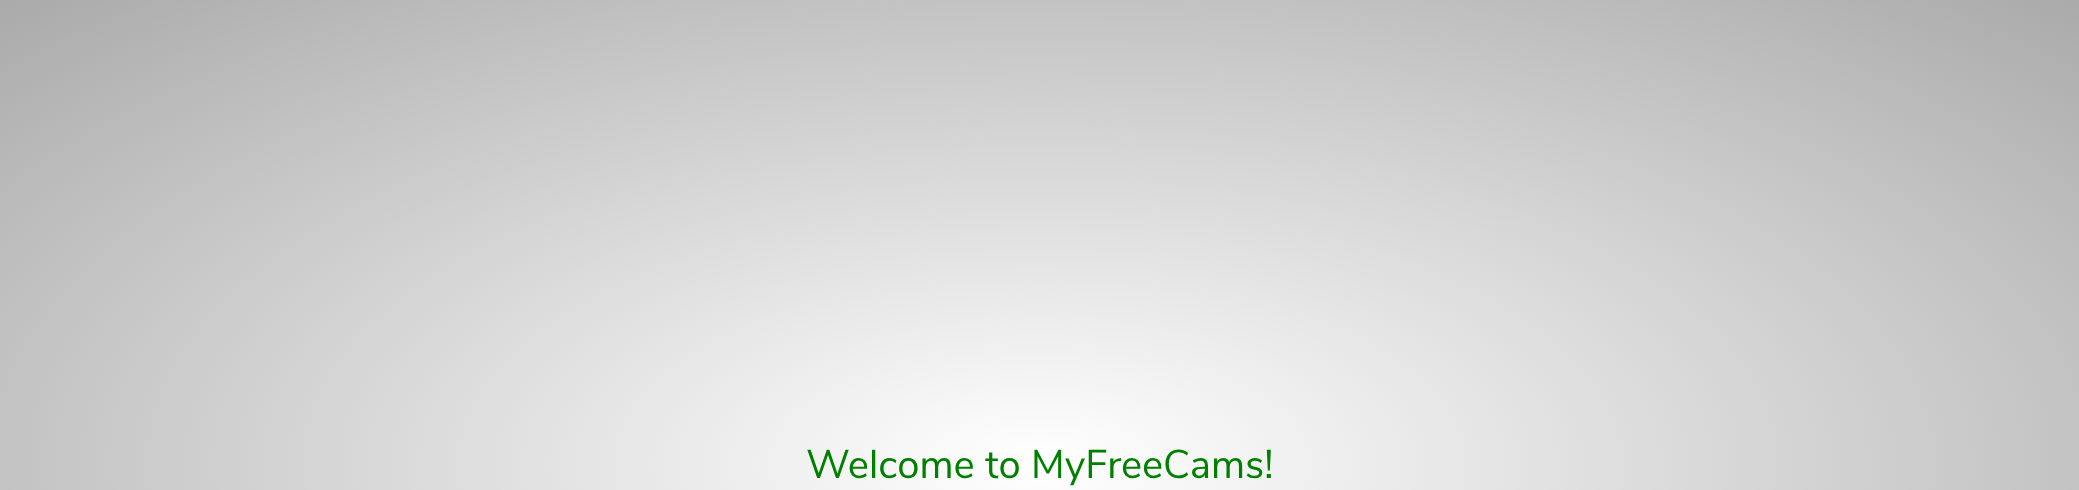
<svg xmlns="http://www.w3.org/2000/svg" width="2079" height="490">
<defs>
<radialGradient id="g1" gradientUnits="userSpaceOnUse" cx="0" cy="0" r="1" gradientTransform="matrix(1471 0 0 656 1040 464)"><stop offset="0" stop-color="#fff"/><stop offset="1" stop-color="#aaa"/></radialGradient>
</defs>
<rect width="100%" height="100%" fill="#fff"/>
<rect width="2079" height="490" fill="url(#g1)"/>
<text x="806" y="478" style="font-family:Nunito Sans;font-size:40px;fill:#008000">Welcome to MyFreeCams!</text>
</svg>
